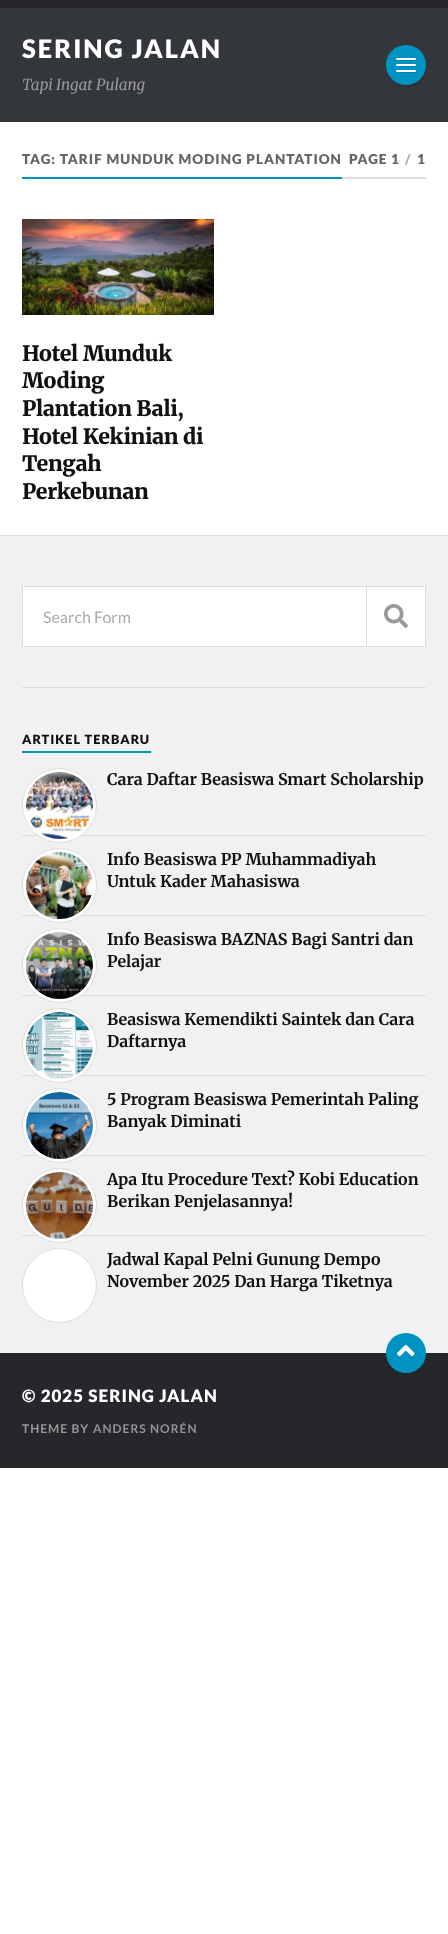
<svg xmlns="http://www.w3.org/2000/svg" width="448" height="1934">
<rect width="100%" height="100%" fill="#fff"/>
<rect y="8" width="448" height="114" fill="#33363b"/>
<rect width="448" height="8" fill="#26272b"/>
<text x="22" y="58" style="font-family:Lato;font-size:25.5px;font-weight:900;letter-spacing:2px;fill:#fff">SERING JALAN</text>
<path d="M386 66c-1 28 41 28 40 0c-1 25-39 25-40 0z" fill="#2e3135"/>
<circle cx="406" cy="65" r="20" fill="#0093c2"/>
<path d="M396 59.5c-1 1.5 2 1.5 4 1.5h12c2 0 5 0 4-1.5l-1 .5h-18z" fill="#0084af"/>
<rect x="396" y="58" width="20" height="2" rx="1" fill="#fff"/>
<path d="M396 65.5c-1 1.5 2 1.5 4 1.5h12c2 0 5 0 4-1.5l-1 .5h-18z" fill="#0084af"/>
<rect x="396" y="64" width="20" height="2" rx="1" fill="#fff"/>
<path d="M396 71.5c-1 1.5 2 1.5 4 1.5h12c2 0 5 0 4-1.5l-1 .5h-18z" fill="#0084af"/>
<rect x="396" y="70" width="20" height="2" rx="1" fill="#fff"/>
<text x="22" y="90" style="font-family:Merriweather;font-size:15.25px;font-weight:300;font-style:italic;fill:#999">Tapi Ingat Pulang</text>
<rect x="342" y="177" width="84" height="2" fill="#ddd"/>
<rect x="22" y="177" width="320" height="2" fill="#0093c2"/>
<text x="22" y="164" style="font-family:Lato;font-size:13.6px;font-weight:900;letter-spacing:1px;fill:#666">TAG: TARIF MUNDUK MODING PLANTATION</text>
<text x="349" y="164" style="font-family:Lato;font-size:13.6px;font-weight:900;letter-spacing:1px;fill:#666">PAGE 1</text>
<text x="405" y="164" style="font-family:Lato;font-size:13.6px;font-weight:900;letter-spacing:1px;fill:#aaa">/</text>
<text x="417" y="164" style="font-family:Lato;font-size:13.6px;font-weight:900;letter-spacing:1px;fill:#666">1</text>
<image x="22" y="219" width="192" height="96" href="media/1.png"/>
<text x="22" y="361" style="font-family:Merriweather;font-size:21.25px;font-weight:900;letter-spacing:-0.25px;fill:#111">Hotel Munduk</text>
<text x="22" y="388" style="font-family:Merriweather;font-size:21.25px;font-weight:900;letter-spacing:-0.25px;fill:#111">Moding</text>
<text x="22" y="416" style="font-family:Merriweather;font-size:21.25px;font-weight:900;letter-spacing:-0.25px;fill:#111">Plantation Bali,</text>
<text x="22" y="444" style="font-family:Merriweather;font-size:21.25px;font-weight:900;letter-spacing:-0.25px;fill:#111">Hotel Kekinian di</text>
<text x="22" y="471" style="font-family:Merriweather;font-size:21.25px;font-weight:900;letter-spacing:-0.25px;fill:#111">Tengah</text>
<text x="22" y="499" style="font-family:Merriweather;font-size:21.25px;font-weight:900;letter-spacing:-0.25px;fill:#111">Perkebunan</text>
<rect y="536" width="448" height="817" fill="#f1f1f1"/>
<rect y="535" width="448" height="1" fill="#ddd"/>
<rect x="22.5" y="586.5" width="403" height="60" fill="#fff" stroke="#ddd"/>
<text x="43" y="623" style="font-family:Lato;font-size:16px;fill:#aaa">Search Form</text>
<rect x="366" y="587" width="1" height="59" fill="#ddd"/>
<image x="384" y="604" width="24" height="24" href="media/2.png"/>
<rect x="22" y="687" width="404" height="1" fill="#ddd"/>
<rect x="22" y="751" width="129" height="2" fill="#0093c2"/>
<text x="22" y="744" style="font-family:Lato;font-size:12.75px;font-weight:900;letter-spacing:1px;fill:#111">ARTIKEL TERBARU</text>
<rect x="22" y="835" width="404" height="1" fill="#ddd"/>
<circle cx="59.5" cy="805.5" r="37" fill="#fff" stroke="#ddd"/>
<image x="26" y="772" width="67" height="67" href="media/3.png"/>
<text x="107" y="785" style="font-family:Merriweather;font-size:16px;font-weight:bold;fill:#111">Cara Daftar Beasiswa Smart Scholarship</text>
<rect x="22" y="915" width="404" height="1" fill="#ddd"/>
<circle cx="59.5" cy="885.5" r="37" fill="#fff" stroke="#ddd"/>
<image x="26" y="852" width="67" height="67" href="media/4.png"/>
<text x="107" y="865" style="font-family:Merriweather;font-size:16px;font-weight:bold;fill:#111">Info Beasiswa PP Muhammadiyah</text>
<text x="107" y="887" style="font-family:Merriweather;font-size:16px;font-weight:bold;fill:#111">Untuk Kader Mahasiswa</text>
<rect x="22" y="995" width="404" height="1" fill="#ddd"/>
<circle cx="59.5" cy="965.5" r="37" fill="#fff" stroke="#ddd"/>
<image x="26" y="932" width="67" height="67" href="media/5.png"/>
<text x="107" y="945" style="font-family:Merriweather;font-size:16px;font-weight:bold;fill:#111">Info Beasiswa BAZNAS Bagi Santri dan</text>
<text x="107" y="967" style="font-family:Merriweather;font-size:16px;font-weight:bold;fill:#111">Pelajar</text>
<rect x="22" y="1075" width="404" height="1" fill="#ddd"/>
<circle cx="59.5" cy="1045.5" r="37" fill="#fff" stroke="#ddd"/>
<image x="26" y="1012" width="67" height="67" href="media/6.png"/>
<text x="107" y="1025" style="font-family:Merriweather;font-size:16px;font-weight:bold;fill:#111">Beasiswa Kemendikti Saintek dan Cara</text>
<text x="107" y="1047" style="font-family:Merriweather;font-size:16px;font-weight:bold;fill:#111">Daftarnya</text>
<rect x="22" y="1155" width="404" height="1" fill="#ddd"/>
<circle cx="59.5" cy="1125.5" r="37" fill="#fff" stroke="#ddd"/>
<image x="26" y="1092" width="67" height="67" href="media/7.png"/>
<text x="107" y="1105" style="font-family:Merriweather;font-size:16px;font-weight:bold;fill:#111">5 Program Beasiswa Pemerintah Paling</text>
<text x="107" y="1127" style="font-family:Merriweather;font-size:16px;font-weight:bold;fill:#111">Banyak Diminati</text>
<rect x="22" y="1235" width="404" height="1" fill="#ddd"/>
<circle cx="59.5" cy="1205.5" r="37" fill="#fff" stroke="#ddd"/>
<image x="26" y="1172" width="67" height="67" href="media/8.png"/>
<text x="107" y="1185" style="font-family:Merriweather;font-size:16px;font-weight:bold;fill:#111">Apa Itu Procedure Text? Kobi Education</text>
<text x="107" y="1207" style="font-family:Merriweather;font-size:16px;font-weight:bold;fill:#111">Berikan Penjelasannya!</text>
<circle cx="59.5" cy="1285.5" r="37" fill="#fff" stroke="#ddd"/>
<text x="107" y="1265" style="font-family:Merriweather;font-size:16px;font-weight:bold;fill:#111">Jadwal Kapal Pelni Gunung Dempo</text>
<text x="107" y="1287" style="font-family:Merriweather;font-size:16px;font-weight:bold;fill:#111">November 2025 Dan Harga Tiketnya</text>
<rect y="1353" width="448" height="115" fill="#26272b"/>
<circle cx="406" cy="1353" r="20" fill="#0093c2"/>
<image x="397" y="1344" width="18" height="13" href="media/9.png"/>
<text x="22" y="1402" style="font-family:Lato;font-size:17px;font-weight:900;letter-spacing:1px;fill:#fff">© 2025 SERING JALAN</text>
<text x="22" y="1433" style="font-family:Lato;font-size:12px;font-weight:bold;letter-spacing:1px;fill:#999">THEME BY</text>
<text x="93" y="1433" style="font-family:Lato;font-size:12px;font-weight:bold;letter-spacing:1px;fill:#939395">ANDERS NORÉN</text>
</svg>
